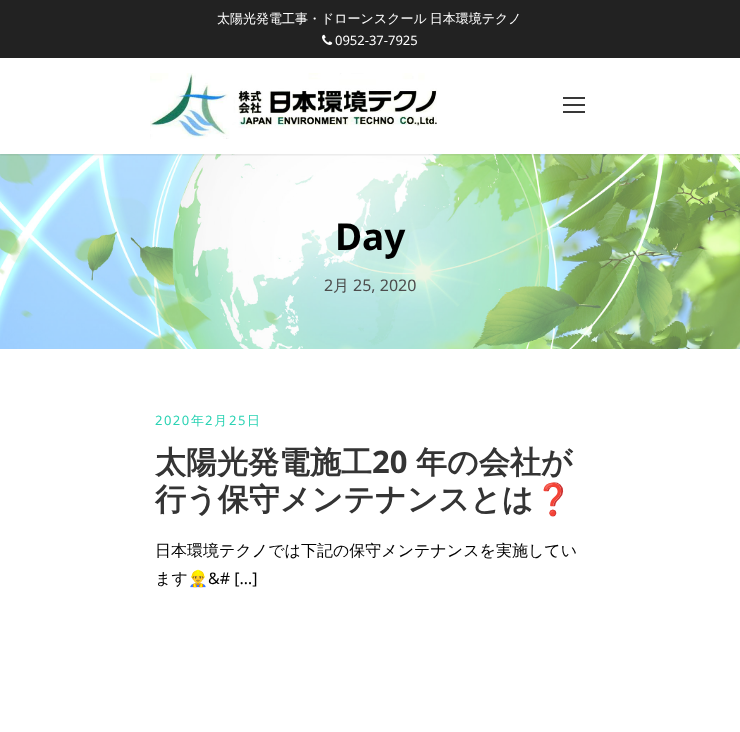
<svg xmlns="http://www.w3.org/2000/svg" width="740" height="732">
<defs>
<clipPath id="clip1"><rect x="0" y="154" width="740" height="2"/></clipPath>
</defs>
<rect width="100%" height="100%" fill="#fff"/>
<image x="0" y="154" width="740" height="195" href="media/3.png"/>
<g clip-path="url(#clip1)">
<rect y="59" width="740" height="96" fill="#0000001a" filter="blur(1px)"/>
</g>
<rect width="740" height="58" fill="#222"/>
<text x="217" y="23" word-spacing="-1" style="font-family:WenQuanYi Zen Hei;font-size:13px;font-weight:500;fill:#fff">太陽光発電工事・ドローンスクール 日本環境テクノ</text>
<image x="322" y="34" width="11" height="11" href="media/1.png"/>
<text x="335" y="45" style="font-family:Noto Sans;font-size:13px;fill:#fff">0952-37-7925</text>
<image x="150" y="73" width="287" height="66" href="media/2.png"/>
<rect x="563" y="97" width="22" height="2" fill="#383838"/>
<rect x="563" y="104" width="22" height="2" fill="#383838"/>
<rect x="563" y="111" width="22" height="2" fill="#383838"/>
<text x="335" y="250" style="font-family:Noto Sans;font-size:37px;font-weight:bold;fill:#000">Day</text>
<text x="324" y="291" style="font-family:Noto Sans;font-size:16px;fill:#4d4d4d">2</text>
<text x="333" y="291" style="font-family:WenQuanYi Zen Hei;font-size:16px;font-weight:500;fill:#4d4d4d">月</text>
<text x="353" y="291" style="font-family:Noto Sans;font-size:16px;fill:#4d4d4d">25, 2020</text>
<text x="155" y="425" style="font-family:Noto Sans;font-size:13px;letter-spacing:1.5px;fill:#2cd3b4">2020</text>
<text x="191" y="425" style="font-family:WenQuanYi Zen Hei;font-size:13px;font-weight:500;letter-spacing:1.5px;fill:#2cd3b4">年</text>
<text x="205" y="425" style="font-family:Noto Sans;font-size:13px;letter-spacing:1.5px;fill:#2cd3b4">2</text>
<text x="214" y="425" style="font-family:WenQuanYi Zen Hei;font-size:13px;font-weight:500;letter-spacing:1.5px;fill:#2cd3b4">月</text>
<text x="229" y="425" style="font-family:Noto Sans;font-size:13px;letter-spacing:1.5px;fill:#2cd3b4">25</text>
<text x="247" y="425" style="font-family:WenQuanYi Zen Hei;font-size:13px;font-weight:500;letter-spacing:1.5px;fill:#2cd3b4">日</text>
<text x="155" y="473" style="font-family:WenQuanYi Zen Hei;font-size:31px;font-weight:bold;fill:#343434">太陽光発電施工</text>
<text x="372" y="473" style="font-family:Noto Sans;font-size:31px;font-weight:bold;fill:#343434">20</text>
<text x="416" y="473" style="font-family:WenQuanYi Zen Hei;font-size:31px;font-weight:bold;fill:#343434">年の会社が</text>
<text x="155" y="510" style="font-family:WenQuanYi Zen Hei;font-size:31px;font-weight:bold;fill:#343434">行う保守メンテナンスとは</text>
<text x="534" y="510" style="font-family:Noto Color Emoji;font-size:31px;font-weight:bold;fill:#343434">❓</text>
<text x="155" y="556" style="font-family:WenQuanYi Zen Hei;font-size:16px;font-weight:500;fill:#000">日本環境テクノでは下記の保守メンテナンスを実施してい</text>
<text x="155" y="584" style="font-family:WenQuanYi Zen Hei;font-size:16px;font-weight:500;fill:#000">ます</text>
<text x="188" y="584" style="font-family:Noto Color Emoji;font-size:16px;fill:#000">👷‍♂</text>
<text x="208" y="584" style="font-family:Noto Sans;font-size:16px;fill:#000">&amp;# […]</text>
</svg>
